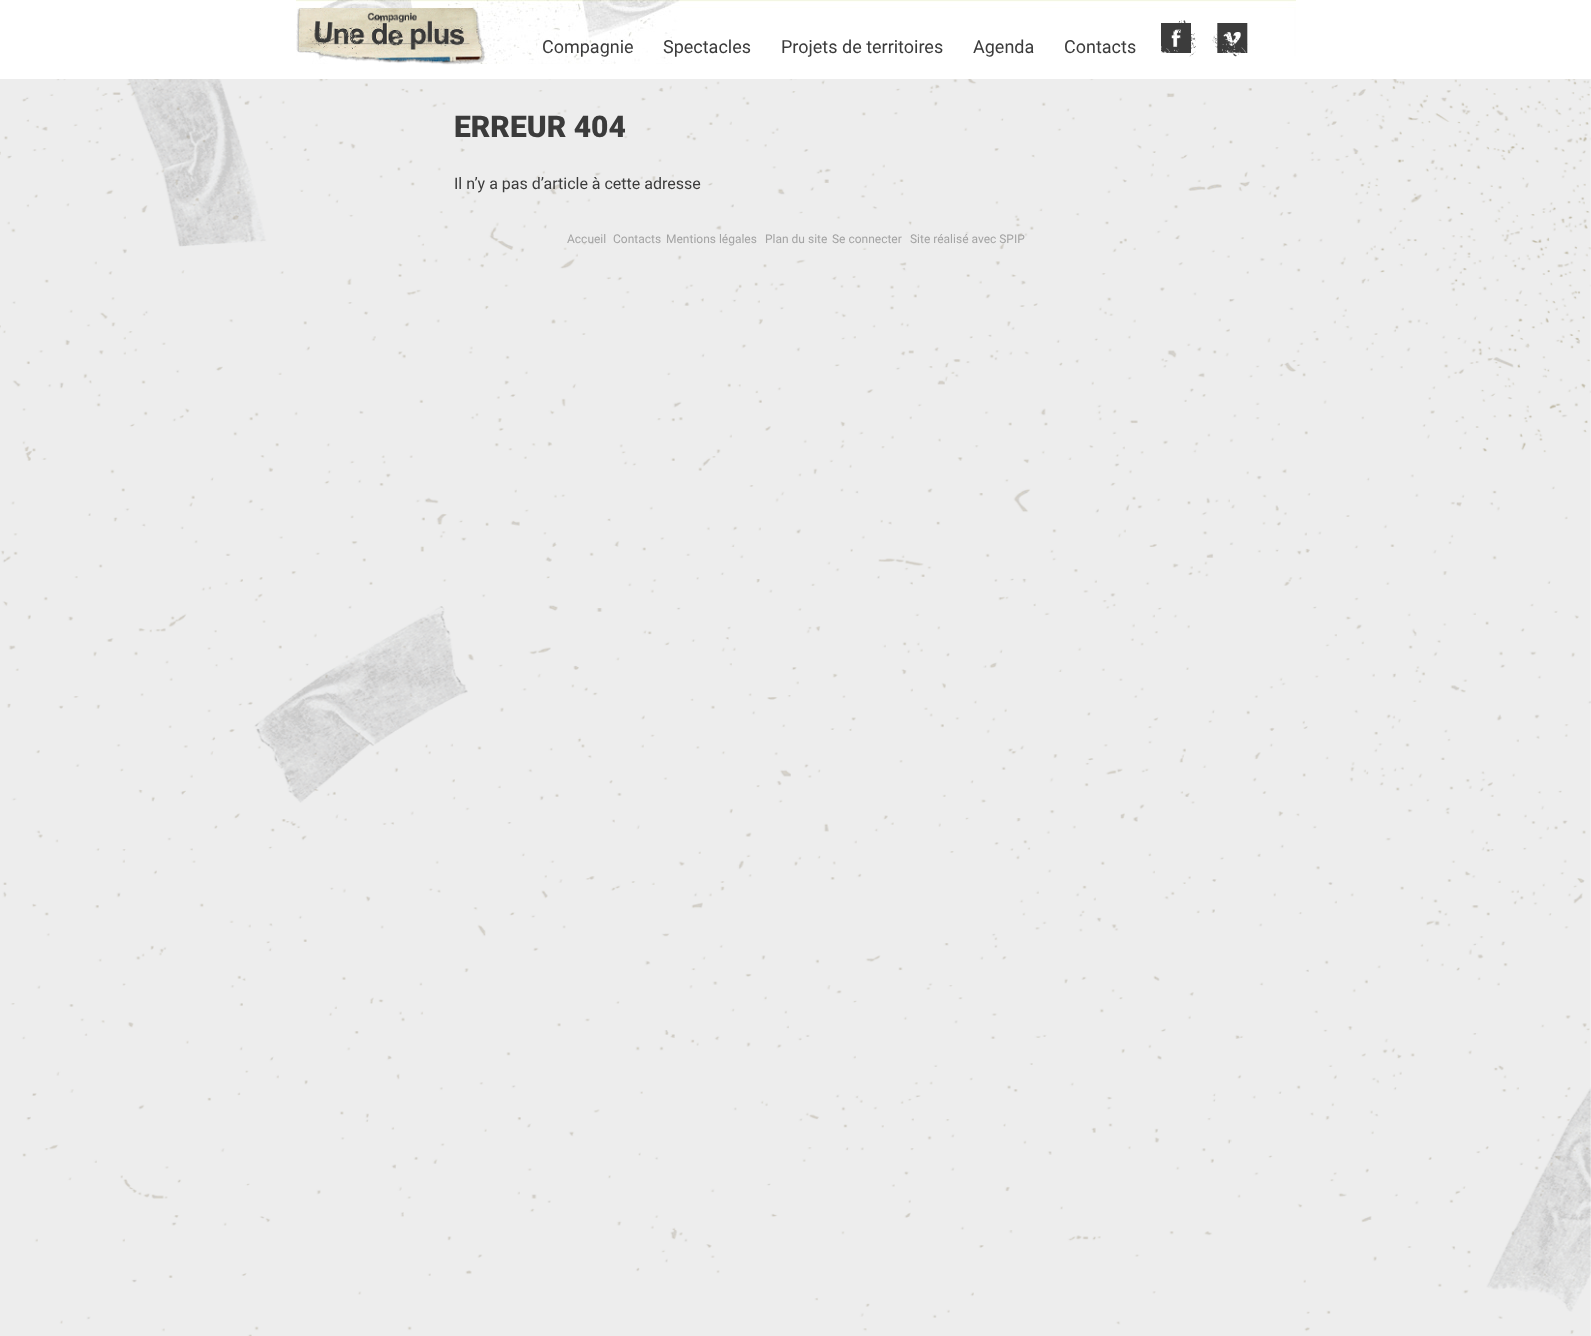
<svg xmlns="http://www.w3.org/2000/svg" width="1591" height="1336">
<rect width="100%" height="100%" fill="#fff"/>
<image x="0" y="79" width="1591" height="1257" href="media/1.png"/>
<image x="296" y="0" width="1000" height="64" href="media/2.png"/>
<image x="296" y="8" width="189" height="57" href="media/3.png"/>
<text x="542" y="53" style="font-family:Roboto;font-size:18px;fill:#3b3b3b">Compagnie</text>
<text x="663" y="53" style="font-family:Roboto;font-size:18px;fill:#3b3b3b">Spectacles</text>
<text x="781" y="53" style="font-family:Roboto;font-size:18px;fill:#3b3b3b">Projets de territoires</text>
<text x="973" y="53" style="font-family:Roboto;font-size:18px;fill:#3b3b3b">Agenda</text>
<text x="1064" y="53" style="font-family:Roboto;font-size:18px;fill:#3b3b3b">Contacts</text>
<image x="1161" y="20" width="35" height="37" href="media/4.png"/>
<image x="1212" y="23" width="36" height="34" href="media/5.png"/>
<text x="454" y="137" style="font-family:Roboto;font-size:30px;font-weight:900;fill:#3b3b3b">ERREUR 404</text>
<text x="454" y="189" style="font-family:Roboto;font-size:16px;fill:#3b3b3b">Il n’y a pas d’article à cette adresse</text>
<text x="567" y="243" style="font-family:Roboto;font-size:12px;fill:#a3a3a3">Accueil</text>
<text x="613" y="243" style="font-family:Roboto;font-size:12px;fill:#a3a3a3">Contacts</text>
<text x="666" y="243" style="font-family:Roboto;font-size:12px;fill:#a3a3a3">Mentions légales</text>
<text x="765" y="243" style="font-family:Roboto;font-size:12px;fill:#a3a3a3">Plan du site</text>
<text x="832" y="243" style="font-family:Roboto;font-size:12px;fill:#a3a3a3">Se connecter</text>
<text x="910" y="243" style="font-family:Roboto;font-size:12px;fill:#a3a3a3">Site réalisé avec SPIP</text>
</svg>
